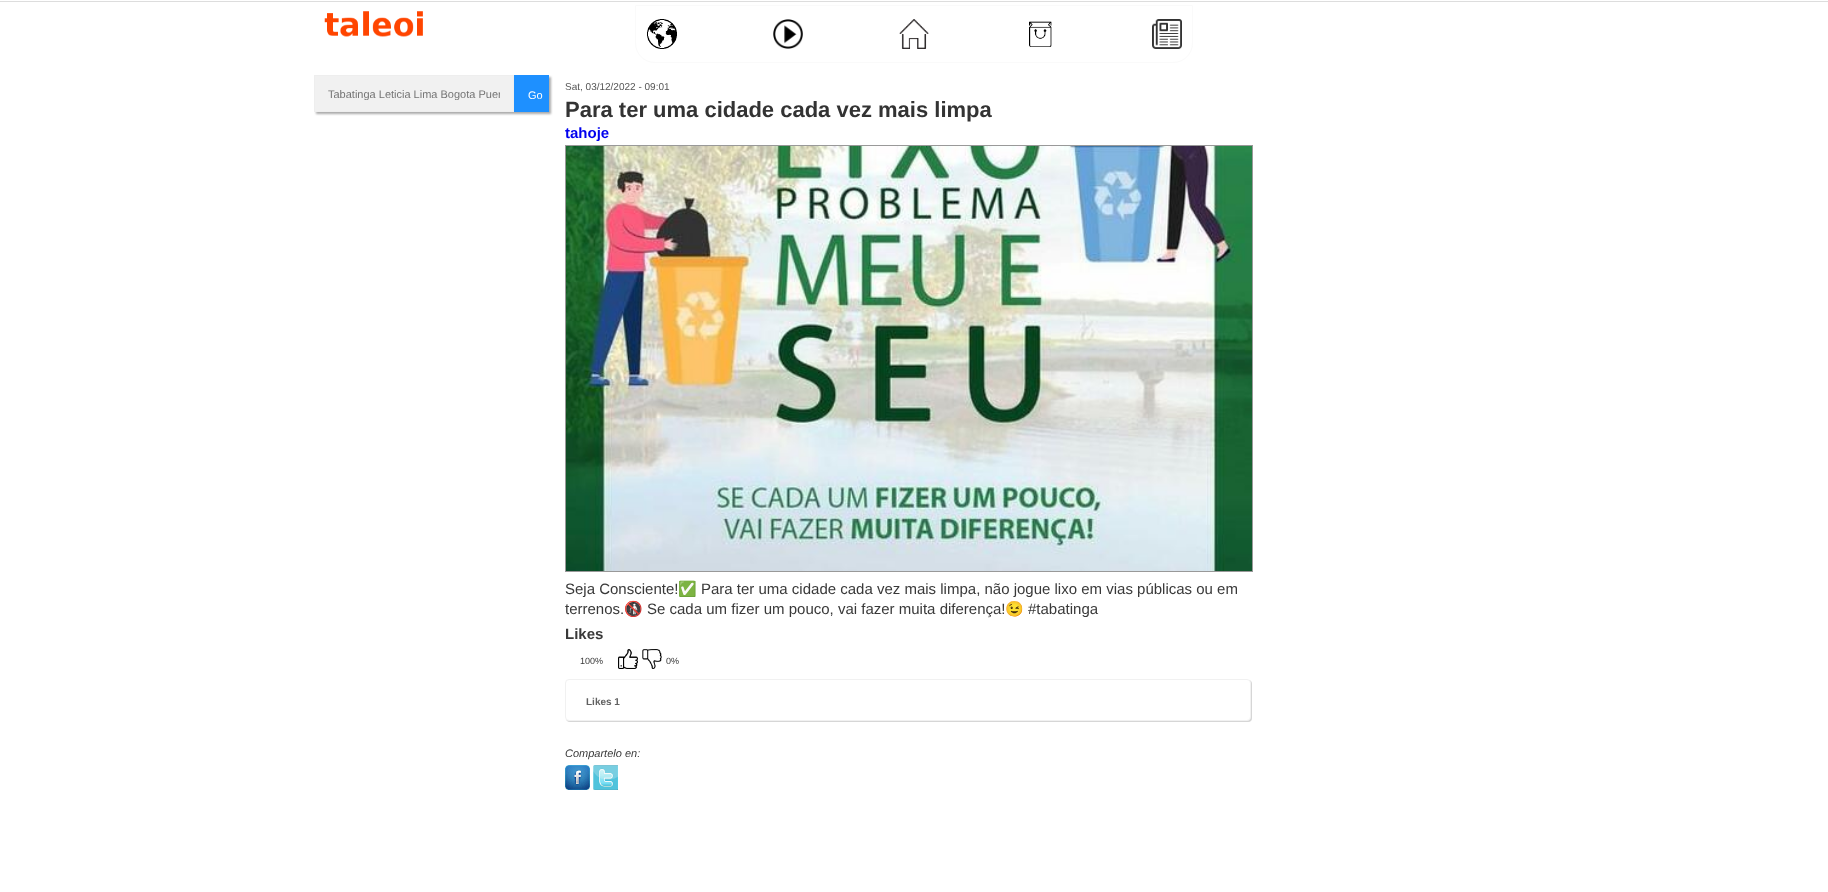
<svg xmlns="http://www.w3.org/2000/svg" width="1828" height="892">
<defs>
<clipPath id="clip1"><rect x="328" y="88" width="172" height="12"/></clipPath>
</defs>
<rect width="100%" height="100%" fill="#fff"/>
<rect y="1" width="1828" height="1" fill="#ddd"/>
<image x="324" y="11" width="99" height="26" href="media/1.png"/>
<path d="M635.5 5.5h557v37.5c0 11-8.5 19.5-19.5 19.5h-518c-11 0-19.5-8.5-19.5-19.5z" fill="none" stroke="#fafafa"/>
<image x="647" y="19" width="30" height="30" href="media/2.png"/>
<image x="773" y="19" width="30" height="30" href="media/3.png"/>
<image x="899" y="19" width="30" height="30" href="media/4.png"/>
<image x="1029" y="21" width="23" height="26" href="media/5.png"/>
<image x="1152" y="19" width="30" height="30" href="media/6.png"/>
<rect x="316" y="77" width="235" height="37" fill="#aaa" filter="blur(1px)"/>
<rect x="314.5" y="75.5" width="199" height="36" fill="#f1f1f1" stroke="#eee"/>
<g clip-path="url(#clip1)">
<text x="328" y="98" style="font-family:Liberation Sans;font-size:11px;fill:#757575">Tabatinga Leticia Lima Bogota Puer</text>
</g>
<rect x="514" y="75" width="35" height="37" fill="#1e90ff"/>
<text x="528" y="99" style="font-family:Liberation Sans;font-size:11px;fill:#fff">Go</text>
<text x="565" y="90" style="font-family:Liberation Sans;font-size:10px;fill:#555">Sat, 03/12/2022 - 09:01</text>
<text x="565" y="117" style="font-family:Liberation Sans;font-size:22px;font-weight:bold;fill:#333">Para ter uma cidade cada vez mais limpa</text>
<text x="565" y="138" style="font-family:Liberation Sans;font-size:15px;font-weight:bold;fill:#00e">tahoje</text>
<rect x="565.5" y="145.5" width="687" height="426" fill="none" stroke="#999"/>
<image x="566" y="146" width="686" height="425" href="media/7.png"/>
<text x="565" y="594" style="font-family:Liberation Sans;font-size:15px;fill:#393939">Seja Consciente!</text>
<text x="678" y="594" style="font-family:Noto Color Emoji;font-size:15px;fill:#393939">✅</text>
<text x="701" y="594" style="font-family:Liberation Sans;font-size:15px;fill:#393939">Para ter uma cidade cada vez mais limpa, não jogue lixo em vias públicas ou em</text>
<text x="565" y="614" style="font-family:Liberation Sans;font-size:15px;fill:#393939">terrenos.</text>
<text x="624" y="614" style="font-family:Noto Color Emoji;font-size:15px;fill:#393939">🚯</text>
<text x="647" y="614" style="font-family:Liberation Sans;font-size:15px;fill:#393939">Se cada um fizer um pouco, vai fazer muita diferença!</text>
<text x="1005" y="614" style="font-family:Noto Color Emoji;font-size:15px;fill:#393939">😉</text>
<text x="1028" y="614" style="font-family:Liberation Sans;font-size:15px;fill:#393939">#tabatinga</text>
<text x="565" y="639" style="font-family:Liberation Sans;font-size:15px;font-weight:bold;fill:#393939">Likes</text>
<text x="580" y="664" style="font-family:Liberation Sans;font-size:9px;fill:#393939">100%</text>
<image x="618" y="649" width="20" height="20" href="media/8.png"/>
<image x="642" y="649" width="20" height="20" href="media/9.png"/>
<text x="666" y="664" style="font-family:Liberation Sans;font-size:9px;fill:#393939">0%</text>
<rect x="566" y="680" width="686" height="42" rx="4" fill="#d6d6d6" filter="blur(0.5px)"/>
<rect x="565.5" y="679.5" width="685" height="41" rx="3.5" fill="#fff" stroke="#f1f1f1"/>
<text x="586" y="705" style="font-family:Liberation Sans;font-size:10px;font-weight:bold;fill:#616161">Likes 1</text>
<text x="565" y="757" style="font-family:Liberation Sans;font-size:11px;font-style:italic;fill:#393939">Compartelo en:</text>
<image x="565" y="765" width="25" height="25" href="media/10.png"/>
<image x="593" y="765" width="25" height="25" href="media/11.png"/>
</svg>
